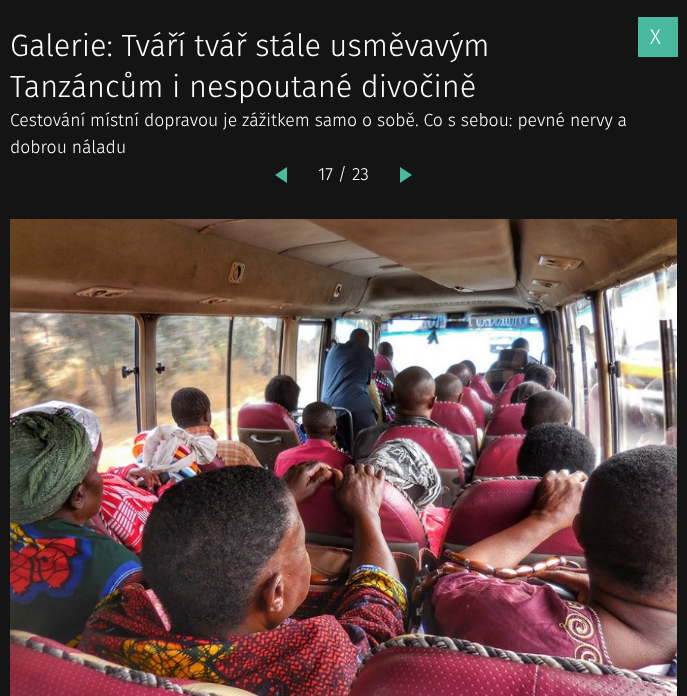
<svg xmlns="http://www.w3.org/2000/svg" width="687" height="696">
<rect width="100%" height="100%" fill="#141414"/>
<text x="10" y="56" style="font-family:Fira Sans;font-size:30.75px;font-weight:300;fill:#fff">Galerie: Tváří tvář stále usměvavým</text>
<text x="10" y="97" style="font-family:Fira Sans;font-size:30.75px;font-weight:300;fill:#fff">Tanzáncům i nespoutané divočině</text>
<text x="10" y="126" style="font-family:Fira Sans;font-size:17.6px;font-weight:300;fill:#fff">Cestování místní dopravou je zážitkem samo o sobě. Co s sebou: pevné nervy a</text>
<text x="10" y="153" style="font-family:Fira Sans;font-size:17.6px;font-weight:300;fill:#fff">dobrou náladu</text>
<path d="M287 167v16l-12-8z" fill="#49ba9d"/>
<text x="318" y="180" style="font-family:Fira Sans;font-size:17.6px;font-weight:300;fill:#fff">17 / 23</text>
<path d="M400 183v-16l12 8z" fill="#49ba9d"/>
<rect x="638" y="17" width="40" height="40" fill="#49ba9d"/>
<text x="650" y="44" style="font-family:Fira Sans;font-size:21px;font-weight:300;letter-spacing:5px;fill:#fff">X</text>
<image x="10" y="219" width="667" height="477" href="media/1.png"/>
</svg>
